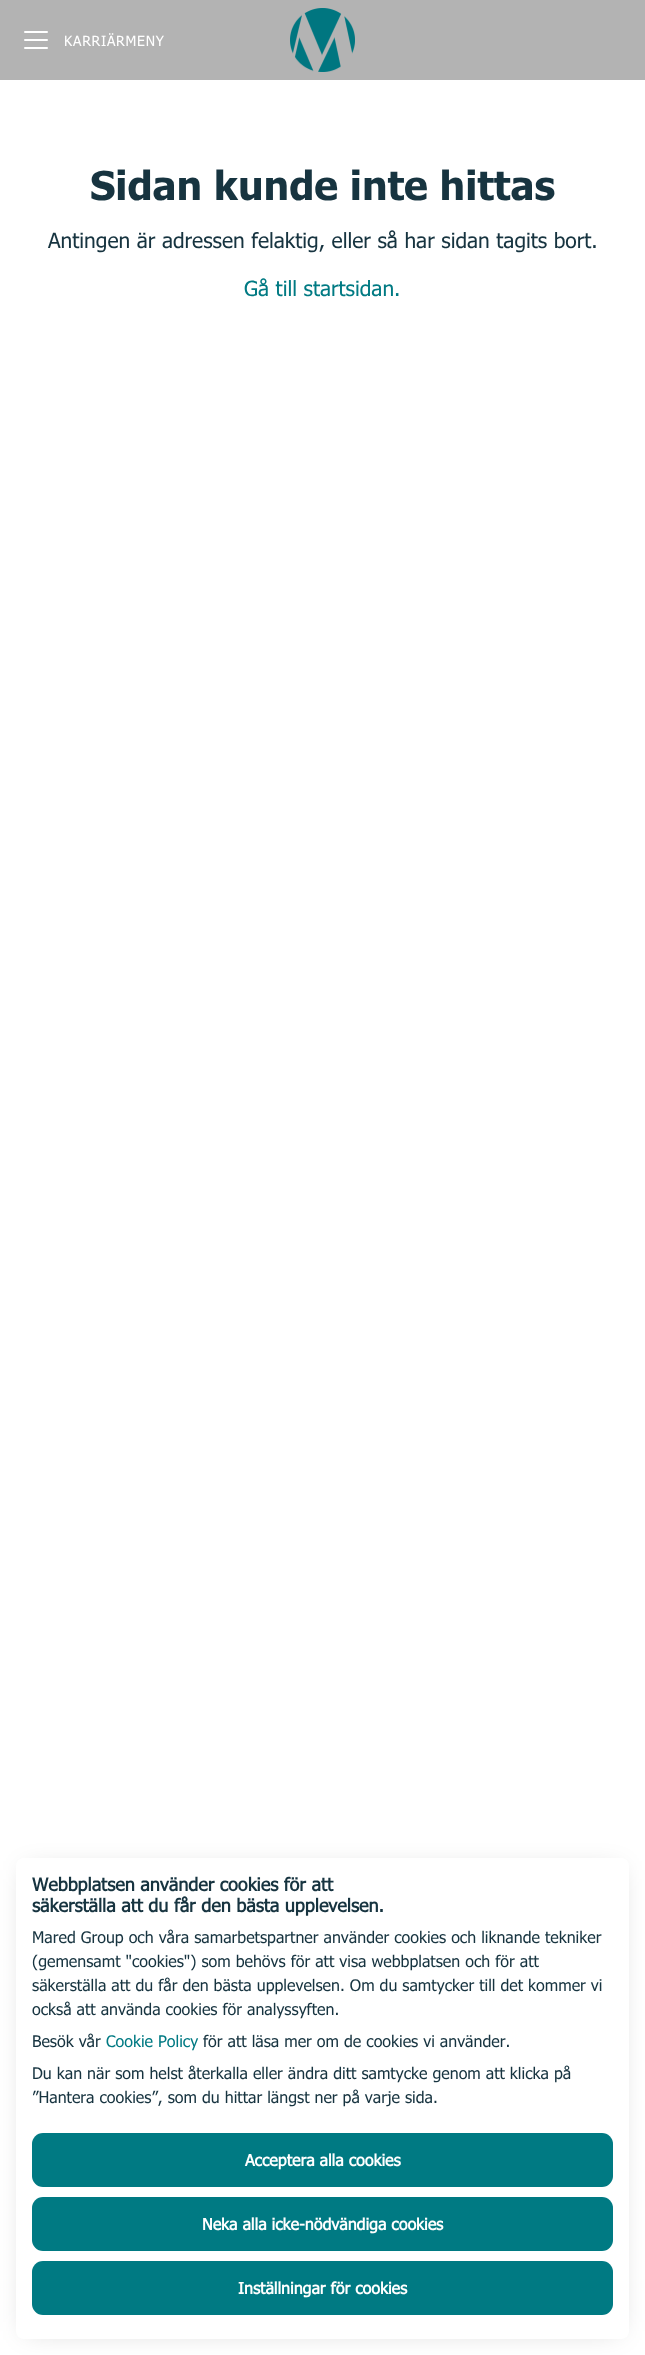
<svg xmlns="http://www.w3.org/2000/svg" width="645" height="2355">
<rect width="100%" height="100%" fill="#fff"/>
<rect width="645" height="80" fill="#b3b3b3"/>
<rect x="24" y="31" width="24" height="2" rx="1" fill="#fff"/>
<rect x="24" y="39" width="24" height="2" rx="1" fill="#fff"/>
<rect x="24" y="47" width="24" height="2" rx="1" fill="#fff"/>
<text x="64" y="46" style="font-family:Tahoma;font-size:14px;letter-spacing:0.75px;fill:#fff">KARRIÄRMENY</text>
<image x="290" y="8" width="65" height="64" href="media/1.png"/>
<text x="90" y="200" style="font-family:Tahoma;font-size:40px;font-weight:bold;fill:#173440">Sidan kunde inte hittas</text>
<text x="48" y="248" style="font-family:Tahoma;font-size:21px;fill:#173440">Antingen är adressen felaktig, eller så har sidan tagits bort.</text>
<text x="244" y="296" style="font-family:Tahoma;font-size:21px;fill:#007a83">Gå till startsidan.</text>
<rect x="26" y="1870" width="593" height="461" fill="#0000002e" filter="blur(13.5px)"/>
<rect x="16" y="1858" width="613" height="481" rx="8" fill="#fff"/>
<text x="32" y="1891" style="font-family:'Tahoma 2';font-size:18px;font-weight:bold;fill:#173440">Webbplatsen använder cookies för att</text>
<text x="32" y="1912" style="font-family:'Tahoma 2';font-size:18px;font-weight:bold;fill:#173440">säkerställa att du får den bästa upplevelsen.</text>
<text x="32" y="1943" style="font-family:Tahoma;font-size:16px;fill:#173440">Mared Group och våra samarbetspartner använder cookies och liknande tekniker</text>
<text x="32" y="1967" style="font-family:Tahoma;font-size:16px;fill:#173440">(gemensamt "cookies") som behövs för att visa webbplatsen och för att</text>
<text x="32" y="1991" style="font-family:Tahoma;font-size:16px;fill:#173440">säkerställa att du får den bästa upplevelsen. Om du samtycker till det kommer vi</text>
<text x="32" y="2015" style="font-family:Tahoma;font-size:16px;fill:#173440">också att använda cookies för analyssyften.</text>
<text x="32" y="2047" style="font-family:Tahoma;font-size:16px;fill:#173440">Besök vår</text>
<text x="106" y="2047" style="font-family:Tahoma;font-size:16px;fill:#007a83">Cookie Policy</text>
<text x="203" y="2047" style="font-family:Tahoma;font-size:16px;fill:#173440">för att läsa mer om de cookies vi använder.</text>
<text x="32" y="2079" style="font-family:Tahoma;font-size:16px;fill:#173440">Du kan när som helst återkalla eller ändra ditt samtycke genom att klicka på</text>
<text x="32" y="2103" style="font-family:Tahoma;font-size:16px;fill:#173440">”Hantera cookies”, som du hittar längst ner på varje sida.</text>
<rect x="32" y="2133" width="581" height="54" rx="11" fill="#007a83"/>
<text x="245" y="2166" style="font-family:'Tahoma 2';font-size:16px;font-weight:bold;fill:#fff">Acceptera alla cookies</text>
<rect x="32" y="2197" width="581" height="54" rx="11" fill="#007a83"/>
<text x="202" y="2230" style="font-family:'Tahoma 2';font-size:16px;font-weight:bold;fill:#fff">Neka alla icke-nödvändiga cookies</text>
<rect x="32" y="2261" width="581" height="54" rx="11" fill="#007a83"/>
<text x="238" y="2294" style="font-family:'Tahoma 2';font-size:16px;font-weight:bold;fill:#fff">Inställningar för cookies</text>
</svg>
